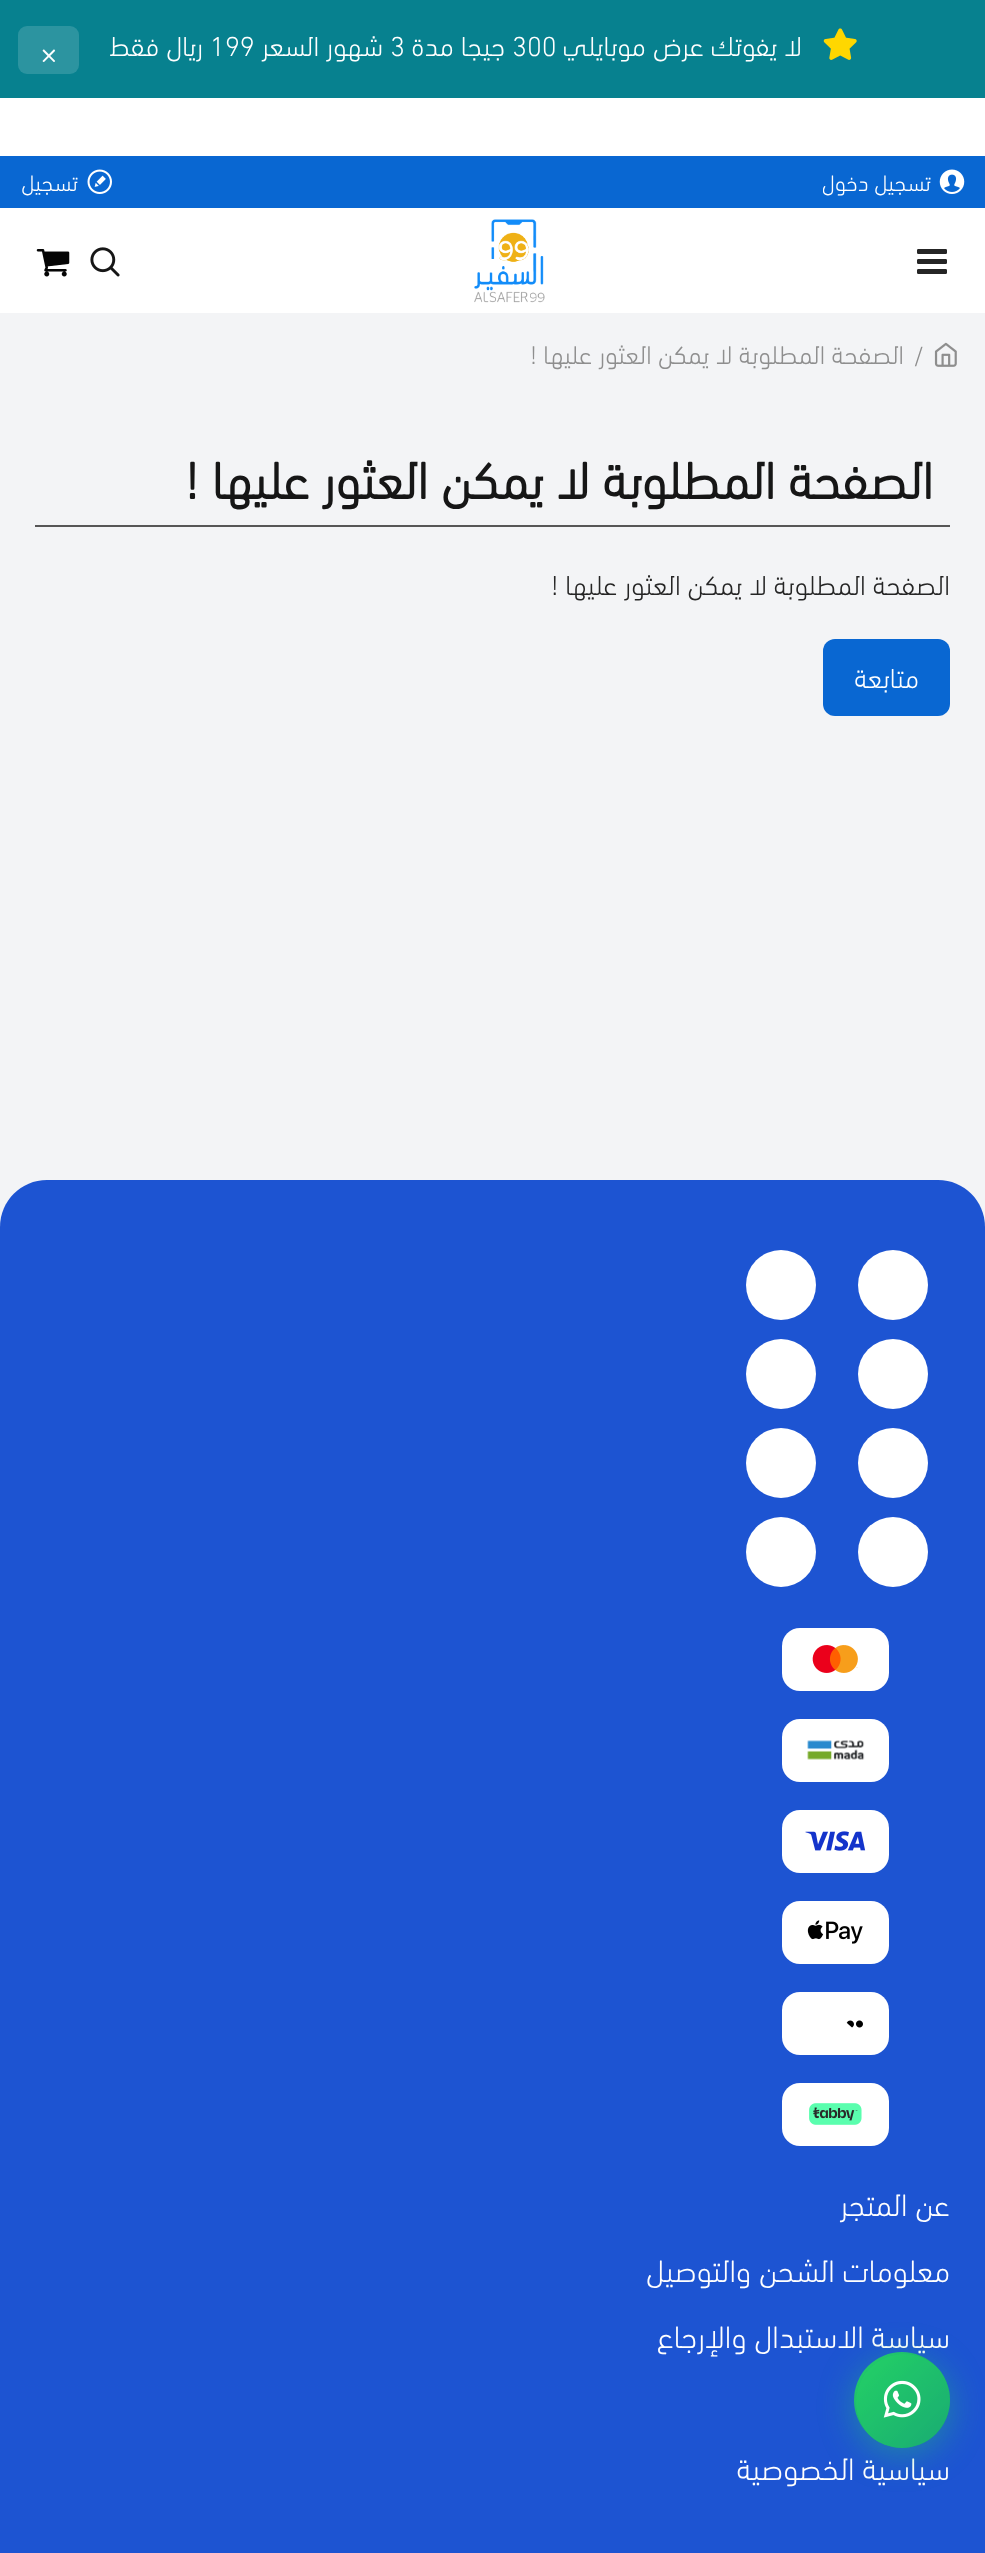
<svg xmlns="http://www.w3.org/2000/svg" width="985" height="2553">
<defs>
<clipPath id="clip1"><rect x="823" y="165" width="108" height="35"/></clipPath>
<linearGradient id="g1" gradientUnits="userSpaceOnUse" x1="854" y1="2352" x2="950" y2="2448"><stop offset="0" stop-color="#25d366"/><stop offset="1" stop-color="#128c7e"/></linearGradient>
<clipPath id="clip2"><rect x="854" y="2352" width="96" height="96" rx="48"/></clipPath>
</defs>
<rect width="100%" height="100%" fill="#fff"/>
<rect width="985" height="98" fill="#07818f"/>
<image x="823" y="28" width="34" height="32" href="media/1.png"/>
<text x="802" y="56" style="font-family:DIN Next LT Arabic;font-size:28px;font-weight:300;direction:rtl;fill:#fff">لا يفوتك عرض موبايلي</text>
<text x="512" y="56" style="font-family:DIN Next LT Arabic;font-size:28px;font-weight:300;fill:#fff">300</text>
<text x="505" y="56" style="font-family:DIN Next LT Arabic;font-size:28px;font-weight:300;direction:rtl;fill:#fff">جيجا مدة</text>
<text x="390" y="56" style="font-family:DIN Next LT Arabic;font-size:28px;font-weight:300;fill:#fff">3</text>
<text x="383" y="56" style="font-family:DIN Next LT Arabic;font-size:28px;font-weight:300;direction:rtl;fill:#fff">شهور السعر</text>
<text x="210" y="56" style="font-family:DIN Next LT Arabic;font-size:28px;font-weight:300;fill:#fff">199</text>
<text x="203" y="56" style="font-family:DIN Next LT Arabic;font-size:28px;font-weight:300;direction:rtl;fill:#fff">ريال فقط</text>
<rect x="18" y="26" width="61" height="48" rx="9" fill="#2c94a0"/>
<text x="39" y="66" style="font-family:DIN Next LT Arabic;font-size:37px;font-weight:300;fill:#fff">×</text>
<rect y="313" width="985" height="914" fill="#f3f4f6"/>
<rect y="156" width="985" height="52" fill="#0967d2"/>
<image x="939" y="169" width="26" height="25" href="media/2.png"/>
<g clip-path="url(#clip1)">
<text x="931" y="191" style="font-family:DIN Next LT Arabic;font-size:22.75px;font-weight:300;direction:rtl;fill:#fff">تسجيل دخول</text>
</g>
<image x="87" y="169" width="25" height="25" href="media/3.png"/>
<text x="78" y="191" style="font-family:DIN Next LT Arabic;font-size:22.75px;font-weight:300;direction:rtl;fill:#fff">تسجيل</text>
<image x="917" y="249" width="30" height="25" href="media/4.png"/>
<image x="474" y="219" width="71" height="84" href="media/5.png"/>
<image x="90" y="247" width="30" height="30" href="media/6.png"/>
<image x="36" y="249" width="34" height="28" href="media/7.png"/>
<image x="934" y="342" width="23" height="25" href="media/8.png"/>
<text x="913" y="366" style="font-family:DIN Next LT Arabic;font-size:28px;font-weight:300;fill:#8e8e8e">/</text>
<text x="904" y="364" style="font-family:DIN Next LT Arabic;font-size:26.25px;font-weight:300;direction:rtl;fill:#8e8e8e">الصفحة المطلوبة لا يمكن العثور عليها !</text>
<rect x="35" y="525" width="915" height="2" fill="#565656"/>
<text x="933" y="499" style="font-family:DIN Next LT Arabic;font-size:52.5px;font-weight:bold;direction:rtl;fill:#161616">الصفحة المطلوبة لا يمكن العثور عليها !</text>
<text x="950" y="595" style="font-family:DIN Next LT Arabic;font-size:28px;font-weight:300;direction:rtl;fill:#252525">الصفحة المطلوبة لا يمكن العثور عليها !</text>
<rect x="823" y="639" width="127" height="77" rx="12" fill="#0967d2"/>
<text x="919" y="688" style="font-family:DIN Next LT Arabic;font-size:28px;font-weight:300;direction:rtl;fill:#fff">متابعة</text>
<path d="M47 1180h891c26 0 47 21 47 47v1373h-985v-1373c0-26 21-47 47-47z" fill="#1d54d2"/>
<circle cx="893" cy="1285" r="35" fill="#fff"/>
<circle cx="781" cy="1285" r="35" fill="#fff"/>
<circle cx="893" cy="1374" r="35" fill="#fff"/>
<circle cx="781" cy="1374" r="35" fill="#fff"/>
<circle cx="893" cy="1463" r="35" fill="#fff"/>
<circle cx="781" cy="1463" r="35" fill="#fff"/>
<circle cx="893" cy="1552" r="35" fill="#fff"/>
<circle cx="781" cy="1552" r="35" fill="#fff"/>
<rect x="782" y="1628" width="107" height="63" rx="18" fill="#fff"/>
<image x="812" y="1645" width="46" height="28" href="media/9.png"/>
<rect x="782" y="1719" width="107" height="63" rx="18" fill="#fff"/>
<image x="807" y="1740" width="58" height="20" href="media/10.png"/>
<rect x="782" y="1810" width="107" height="63" rx="18" fill="#fff"/>
<image x="805" y="1831" width="61" height="20" href="media/11.png"/>
<rect x="782" y="1901" width="107" height="63" rx="18" fill="#fff"/>
<image x="807" y="1920" width="56" height="24" href="media/12.png"/>
<rect x="782" y="1992" width="107" height="63" rx="18" fill="#fff"/>
<image x="846" y="2020" width="17" height="8" href="media/13.png"/>
<rect x="782" y="2083" width="107" height="63" rx="18" fill="#fff"/>
<image x="809" y="2103" width="53" height="22" href="media/14.png"/>
<text x="950" y="2216" style="font-family:DIN Next LT Arabic;font-size:31.5px;font-weight:300;direction:rtl;fill:#fff">عن المتجر</text>
<text x="950" y="2282" style="font-family:DIN Next LT Arabic;font-size:31.5px;font-weight:300;direction:rtl;fill:#fff">معلومات الشحن والتوصيل</text>
<text x="950" y="2348" style="font-family:DIN Next LT Arabic;font-size:31.5px;font-weight:300;direction:rtl;fill:#fff">سياسة الاستبدال والإرجاع</text>
<text x="950" y="2480" style="font-family:DIN Next LT Arabic;font-size:31.5px;font-weight:300;direction:rtl;fill:#fff">سياسية الخصوصية</text>
<rect x="854" y="2359" width="96" height="96" rx="48" fill="#25d36666" filter="blur(17.5px)"/>
<circle cx="902" cy="2400" r="48" fill="url(#g1)"/>
<g clip-path="url(#clip2)">
<circle cx="904" cy="2402" r="48" fill="#25d3664d"/>
<circle cx="904" cy="2402" r="48" fill="#25d36633"/>
</g>
<image x="883" y="2380" width="38" height="38" href="media/15.png"/>
</svg>
